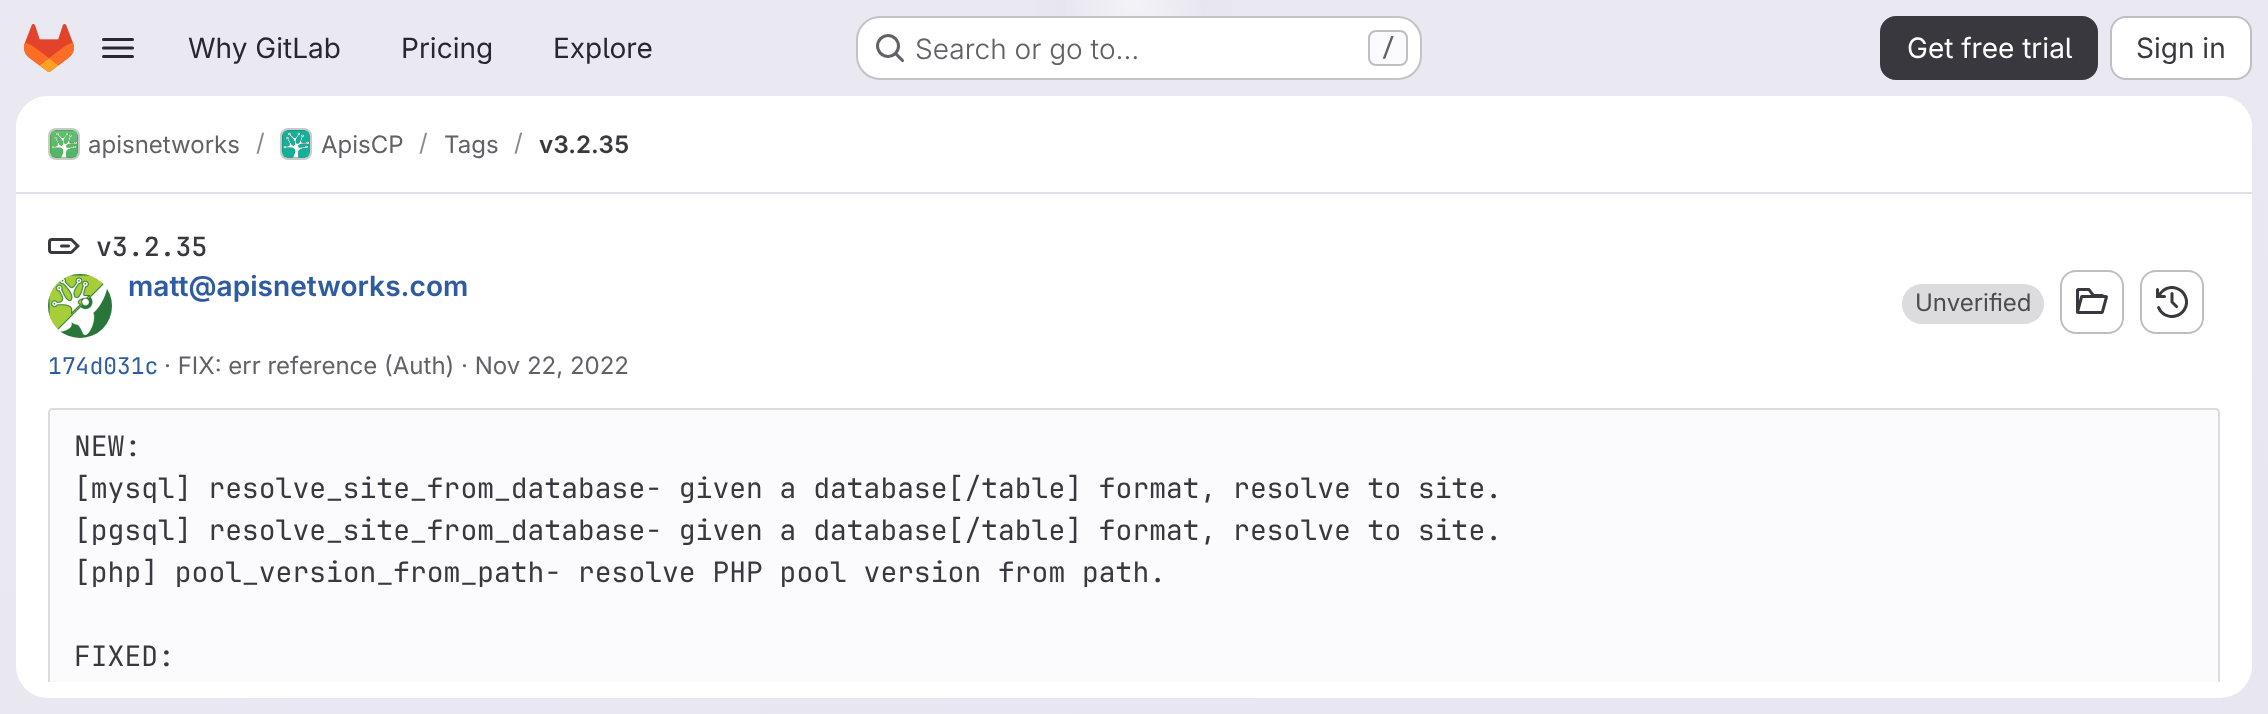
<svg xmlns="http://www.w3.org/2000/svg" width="2268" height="714">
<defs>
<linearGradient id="g1" gradientUnits="userSpaceOnUse" x1="1229" y1="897" x2="1039" y2="-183"><stop offset="0" stop-color="#e8e6f0"/><stop offset="0.7" stop-color="#eae9f2"/></linearGradient>
<radialGradient id="g2" gradientUnits="userSpaceOnUse" cx="0" cy="0" r="1" gradientTransform="matrix(1134 0 0 714 1134 0)"><stop offset="0" stop-color="#e4e2ed"/><stop offset="0.12" stop-color="#e4e2ed" stop-opacity="0"/></radialGradient>
<radialGradient id="g3" gradientUnits="userSpaceOnUse" cx="0" cy="0" r="1" gradientTransform="matrix(1134 0 0 714 1134 0)"><stop offset="0" stop-color="#e4e2ec"/><stop offset="0.09" stop-color="#e4e2ec" stop-opacity="0"/></radialGradient>
<radialGradient id="g4" gradientUnits="userSpaceOnUse" cx="1134" cy="0" r="1340"><stop offset="0" stop-color="#fff" stop-opacity="0.6"/><stop offset="0.06" stop-color="#fff" stop-opacity="0"/></radialGradient>
<clipPath id="clip1"><rect x="16" y="194" width="2236" height="488"/></clipPath>
</defs>
<rect width="100%" height="100%" fill="#fff"/>
<rect width="2268" height="714" fill="url(#g1)"/>
<rect x="1036" width="196" height="62" fill="url(#g2)"/>
<rect x="1107" width="54" height="3" fill="url(#g3)"/>
<rect x="1067" width="134" height="16" fill="url(#g4)"/>
<image x="24" y="24" width="50" height="48" href="media/1.png"/>
<image x="102" y="38" width="32" height="20" href="media/2.png"/>
<text x="188" y="58" style="font-family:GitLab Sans;font-size:28px;fill:#28272d">Why GitLab</text>
<text x="401" y="58" style="font-family:GitLab Sans;font-size:28px;fill:#28272d">Pricing</text>
<text x="553" y="58" style="font-family:GitLab Sans;font-size:28px;fill:#28272d">Explore</text>
<rect x="856" y="16" width="566" height="64" rx="24" fill="#fff"/>
<rect x="857" y="17" width="564" height="62" rx="23" fill="none" stroke="#0505063d" stroke-width="2"/>
<image x="876" y="34" width="29" height="29" href="media/3.png"/>
<text x="915" y="59" style="font-family:GitLab Sans;font-size:28px;font-weight:300;fill:#626168">Search or go to…</text>
<rect x="1369" y="31" width="38" height="34" rx="7" fill="#fbfafd" stroke="#bfbfc3" stroke-width="2"/>
<text x="1381" y="56" style="font-family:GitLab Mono;font-size:24px;font-weight:500;fill:#626168">/</text>
<rect x="1881" y="17" width="216" height="62" rx="15" fill="#3a383f" stroke="#3a383f" stroke-width="2"/>
<text x="1907" y="58" style="font-family:GitLab Sans;font-size:28px;fill:#fff">Get free trial</text>
<rect x="2111" y="17" width="140" height="62" rx="15" fill="#fff" stroke="#bfbfc3" stroke-width="2"/>
<text x="2136" y="58" style="font-family:GitLab Sans;font-size:28px;fill:#3a383f">Sign in</text>
<rect x="16" y="96" width="2236" height="602" rx="32" fill="#fff"/>
<path d="M48 96h2172c17.5 0 32 14.5 32 32v66h-2236v-66c0-17.5 14.5-32 32-32z" fill="#fff"/>
<rect x="16" y="192" width="2236" height="2" fill="#e1dfec"/>
<rect x="49" y="129" width="30" height="30" rx="7" fill="none" stroke="#dcdcde" stroke-width="2"/>
<image x="50" y="130" width="28" height="28" href="media/4.png"/>
<rect x="49" y="129" width="30" height="30" rx="7" fill="none" stroke="#05050614" stroke-width="2"/>
<text x="88" y="153" style="font-family:GitLab Sans;font-size:24px;fill:#626168">apisnetworks</text>
<text x="256" y="151" style="font-family:GitLab Sans;font-size:24px;fill:#89888d">/</text>
<rect x="281" y="129" width="30" height="30" rx="7" fill="none" stroke="#dcdcde" stroke-width="2"/>
<image x="282" y="130" width="28" height="28" href="media/5.png"/>
<rect x="281" y="129" width="30" height="30" rx="7" fill="none" stroke="#05050614" stroke-width="2"/>
<text x="321" y="153" style="font-family:GitLab Sans;font-size:24px;fill:#626168">ApisCP</text>
<text x="419" y="151" style="font-family:GitLab Sans;font-size:24px;fill:#89888d">/</text>
<text x="444" y="153" style="font-family:GitLab Sans;font-size:24px;fill:#626168">Tags</text>
<text x="514" y="151" style="font-family:GitLab Sans;font-size:24px;fill:#89888d">/</text>
<text x="539" y="153" style="font-family:GitLab Sans;font-size:24px;font-weight:600;fill:#3a383f">v3.2.35</text>
<image x="48" y="238" width="32" height="16" href="media/6.png"/>
<text x="96" y="256" style="font-family:GitLab Mono;font-size:26.5px;font-weight:600;fill:#3a383f">v3.2.35</text>
<circle cx="80" cy="306" r="31" fill="none" stroke="#e8e7e9" stroke-width="2"/>
<image x="48" y="274" width="64" height="64" href="media/7.png"/>
<text x="128" y="296" style="font-family:GitLab Sans;font-size:28px;font-weight:600;fill:#2f5ca0">matt@apisnetworks.com</text>
<text x="48" y="374" style="font-family:GitLab Mono;font-size:23px;fill:#2f5ca0">174d031c</text>
<text x="164" y="374" style="font-family:GitLab Sans;font-size:24px;fill:#626168">· FIX: err reference (Auth) · Nov 22, 2022</text>
<rect x="1902" y="284" width="142" height="40" rx="20" fill="#dcdcde"/>
<text x="1915" y="311" style="font-family:GitLab Sans;font-size:24px;fill:#4c4b51">Unverified</text>
<rect x="2061" y="271" width="62" height="62" rx="15" fill="none" stroke="#bfbfc3" stroke-width="2"/>
<image x="2076" y="288" width="32" height="26" href="media/8.png"/>
<rect x="2141" y="271" width="62" height="62" rx="15" fill="none" stroke="#bfbfc3" stroke-width="2"/>
<image x="2156" y="286" width="32" height="32" href="media/9.png"/>
<path d="M52 408h2164c2 0 4 2 4 4v270h-2172v-270c0-2 2-4 4-4z" fill="#fbfafd"/>
<g clip-path="url(#clip1)">
<path d="M52 408c-2 0-4 2-4 4v286h2v-286c0-1 1-2 2-2h2164c1 0 2 1 2 2v286h2v-286c0-2-2-4-4-4z" fill="#dcdcde"/>
</g>
<text x="74" y="456" style="font-family:GitLab Mono;font-size:28px;fill:#3a383f">NEW:</text>
<text x="74" y="498" style="font-family:GitLab Mono;font-size:28px;fill:#3a383f">[mysql] resolve_site_from_database- given a database[/table] format, resolve to site.</text>
<text x="74" y="540" style="font-family:GitLab Mono;font-size:28px;fill:#3a383f">[pgsql] resolve_site_from_database- given a database[/table] format, resolve to site.</text>
<text x="74" y="582" style="font-family:GitLab Mono;font-size:28px;fill:#3a383f">[php] pool_version_from_path- resolve PHP pool version from path.</text>
<text x="74" y="666" style="font-family:GitLab Mono;font-size:28px;fill:#3a383f">FIXED:</text>
</svg>
